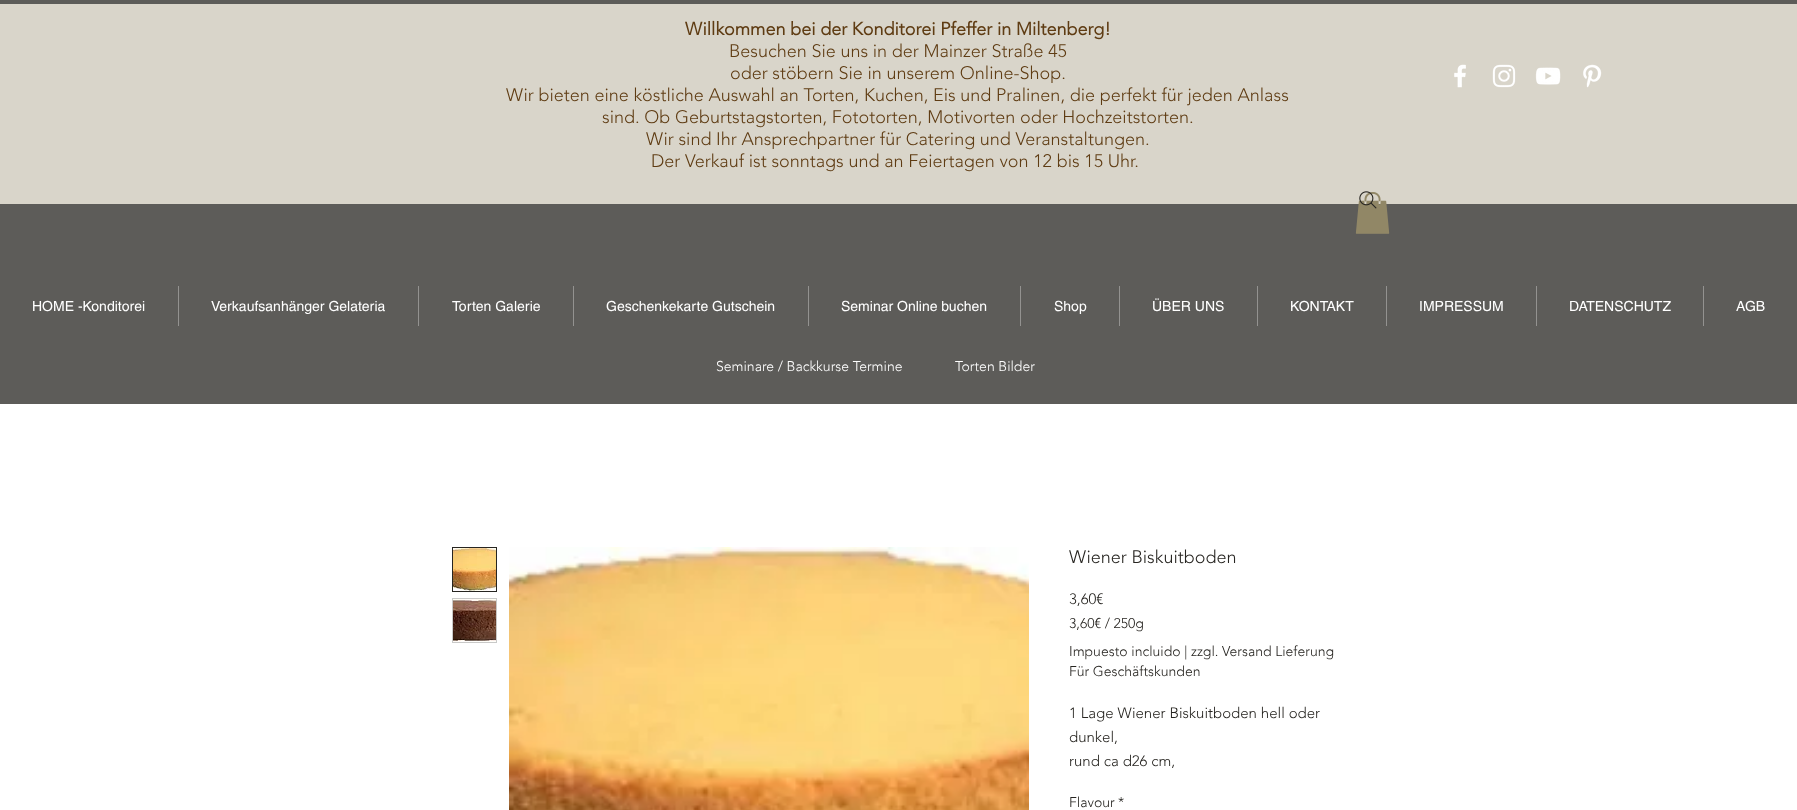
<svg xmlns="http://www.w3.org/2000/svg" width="1797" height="810">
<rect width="100%" height="100%" fill="#fff"/>
<rect width="1797" height="404" fill="#5d5c59"/>
<rect y="4" width="1797" height="200" fill="#d9d5ca"/>
<text x="685" y="35" style="font-family:'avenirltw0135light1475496';font-size:18px;font-weight:bold;fill:#5f3c13">Willkommen bei der Konditorei Pfeffer in Miltenberg!</text>
<text x="729" y="57" style="font-family:'avenirltw0135light1475496';font-size:18px;font-weight:300;fill:#5f3c13">Besuchen Sie uns in der Mainzer Straße 45</text>
<text x="730" y="79" style="font-family:'avenirltw0135light1475496';font-size:18px;font-weight:300;fill:#5f3c13">oder stöbern Sie in unserem Online-Shop.</text>
<text x="506" y="101" style="font-family:'avenirltw0135light1475496';font-size:18px;font-weight:300;fill:#5f3c13">Wir bieten eine köstliche Auswahl an Torten, Kuchen, Eis und Pralinen, die perfekt für jeden Anlass</text>
<text x="602" y="123" style="font-family:'avenirltw0135light1475496';font-size:18px;font-weight:300;fill:#5f3c13">sind. Ob Geburtstagstorten, Fototorten, Motivorten oder Hochzeitstorten.</text>
<text x="646" y="145" style="font-family:'avenirltw0135light1475496';font-size:18px;font-weight:300;fill:#5f3c13">Wir sind Ihr Ansprechpartner für Catering und Veranstaltungen.</text>
<text x="651" y="167" style="font-family:'avenirltw0135light1475496';font-size:18px;font-weight:300;fill:#5f3c13">Der Verkauf ist sonntags und an Feiertagen von 12 bis 15 Uhr.</text>
<image x="1355" y="192" width="35" height="42" href="media/2.png"/>
<image x="1359" y="191" width="18" height="18" href="media/1.png"/>
<text x="32" y="311" style="font-family:helvetica;font-size:14px;fill:#fff">HOME -Konditorei</text>
<rect x="178" y="286" width="1" height="40" fill="#939290"/>
<text x="211" y="311" style="font-family:helvetica;font-size:14px;fill:#fff">Verkaufsanhänger Gelateria</text>
<rect x="418" y="286" width="1" height="40" fill="#939290"/>
<text x="452" y="311" style="font-family:helvetica;font-size:14px;fill:#fff">Torten Galerie</text>
<rect x="573" y="286" width="1" height="40" fill="#939290"/>
<text x="606" y="311" style="font-family:helvetica;font-size:14px;fill:#fff">Geschenkekarte Gutschein</text>
<rect x="808" y="286" width="1" height="40" fill="#939290"/>
<text x="841" y="311" style="font-family:helvetica;font-size:14px;fill:#fff">Seminar Online buchen</text>
<rect x="1020" y="286" width="1" height="40" fill="#939290"/>
<text x="1054" y="311" style="font-family:helvetica;font-size:14px;fill:#fff">Shop</text>
<rect x="1119" y="286" width="1" height="40" fill="#939290"/>
<text x="1152" y="311" style="font-family:helvetica;font-size:14px;fill:#fff">ÜBER UNS</text>
<rect x="1257" y="286" width="1" height="40" fill="#939290"/>
<text x="1290" y="311" style="font-family:helvetica;font-size:14px;fill:#fff">KONTAKT</text>
<rect x="1386" y="286" width="1" height="40" fill="#939290"/>
<text x="1419" y="311" style="font-family:helvetica;font-size:14px;fill:#fff">IMPRESSUM</text>
<rect x="1536" y="286" width="1" height="40" fill="#939290"/>
<text x="1569" y="311" style="font-family:helvetica;font-size:14px;fill:#fff">DATENSCHUTZ</text>
<rect x="1703" y="286" width="1" height="40" fill="#939290"/>
<text x="1736" y="311" style="font-family:helvetica;font-size:14px;fill:#fff">AGB</text>
<text x="716" y="371" style="font-family:'avenirltw0135light1475496';font-size:14px;font-weight:300;fill:#fff">Seminare / Backkurse Termine</text>
<text x="955" y="371" style="font-family:'avenirltw0135light1475496';font-size:14px;font-weight:300;fill:#fff">Torten Bilder</text>
<image x="1454" y="64" width="12" height="24" href="media/3.png"/>
<image x="1492" y="64" width="24" height="24" href="media/4.png"/>
<image x="1535" y="67" width="26" height="18" href="media/5.png"/>
<image x="1583" y="64" width="19" height="24" href="media/6.png"/>
<rect x="452.5" y="547.5" width="44" height="44" fill="none" stroke="#272521"/>
<image x="453" y="548" width="43" height="43" href="media/7.png"/>
<rect x="452" y="598" width="45" height="45" fill="#c9c9c8"/>
<image x="453" y="599" width="43" height="43" href="media/8.png"/>
<image x="509" y="547" width="520" height="263" href="media/9.png"/>
<text x="1069" y="563" style="font-family:'avenirltw0135light1475496';font-size:18px;font-weight:300;fill:#272521">Wiener Biskuitboden</text>
<text x="1069" y="604" style="font-family:'avenirltw0135light1475496';font-size:15px;font-weight:300;fill:#272521">3,60€</text>
<text x="1069" y="628" style="font-family:'avenirltw0135light1475496';font-size:14px;font-weight:300;fill:#272521">3,60€ / 250g</text>
<text x="1069" y="656" style="font-family:'avenirltw0135light1475496';font-size:14px;font-weight:300;fill:#272521">Impuesto incluido | zzgl. Versand Lieferung</text>
<text x="1069" y="676" style="font-family:'avenirltw0135light1475496';font-size:14px;font-weight:300;fill:#272521">Für Geschäftskunden</text>
<text x="1069" y="718" style="font-family:'avenirltw0135light1475496';font-size:15px;font-weight:300;fill:#272521">1 Lage Wiener Biskuitboden hell oder</text>
<text x="1069" y="742" style="font-family:'avenirltw0135light1475496';font-size:15px;font-weight:300;fill:#272521">dunkel,</text>
<text x="1069" y="766" style="font-family:'avenirltw0135light1475496';font-size:15px;font-weight:300;fill:#272521">rund ca d26 cm,</text>
<text x="1069" y="807" style="font-family:'avenirltw0135light1475496';font-size:14px;font-weight:300;fill:#272521">Flavour</text>
<text x="1118" y="807" style="font-family:'avenirltw0135light1475496';font-size:14px;font-weight:300;fill:#272521">*</text>
</svg>
